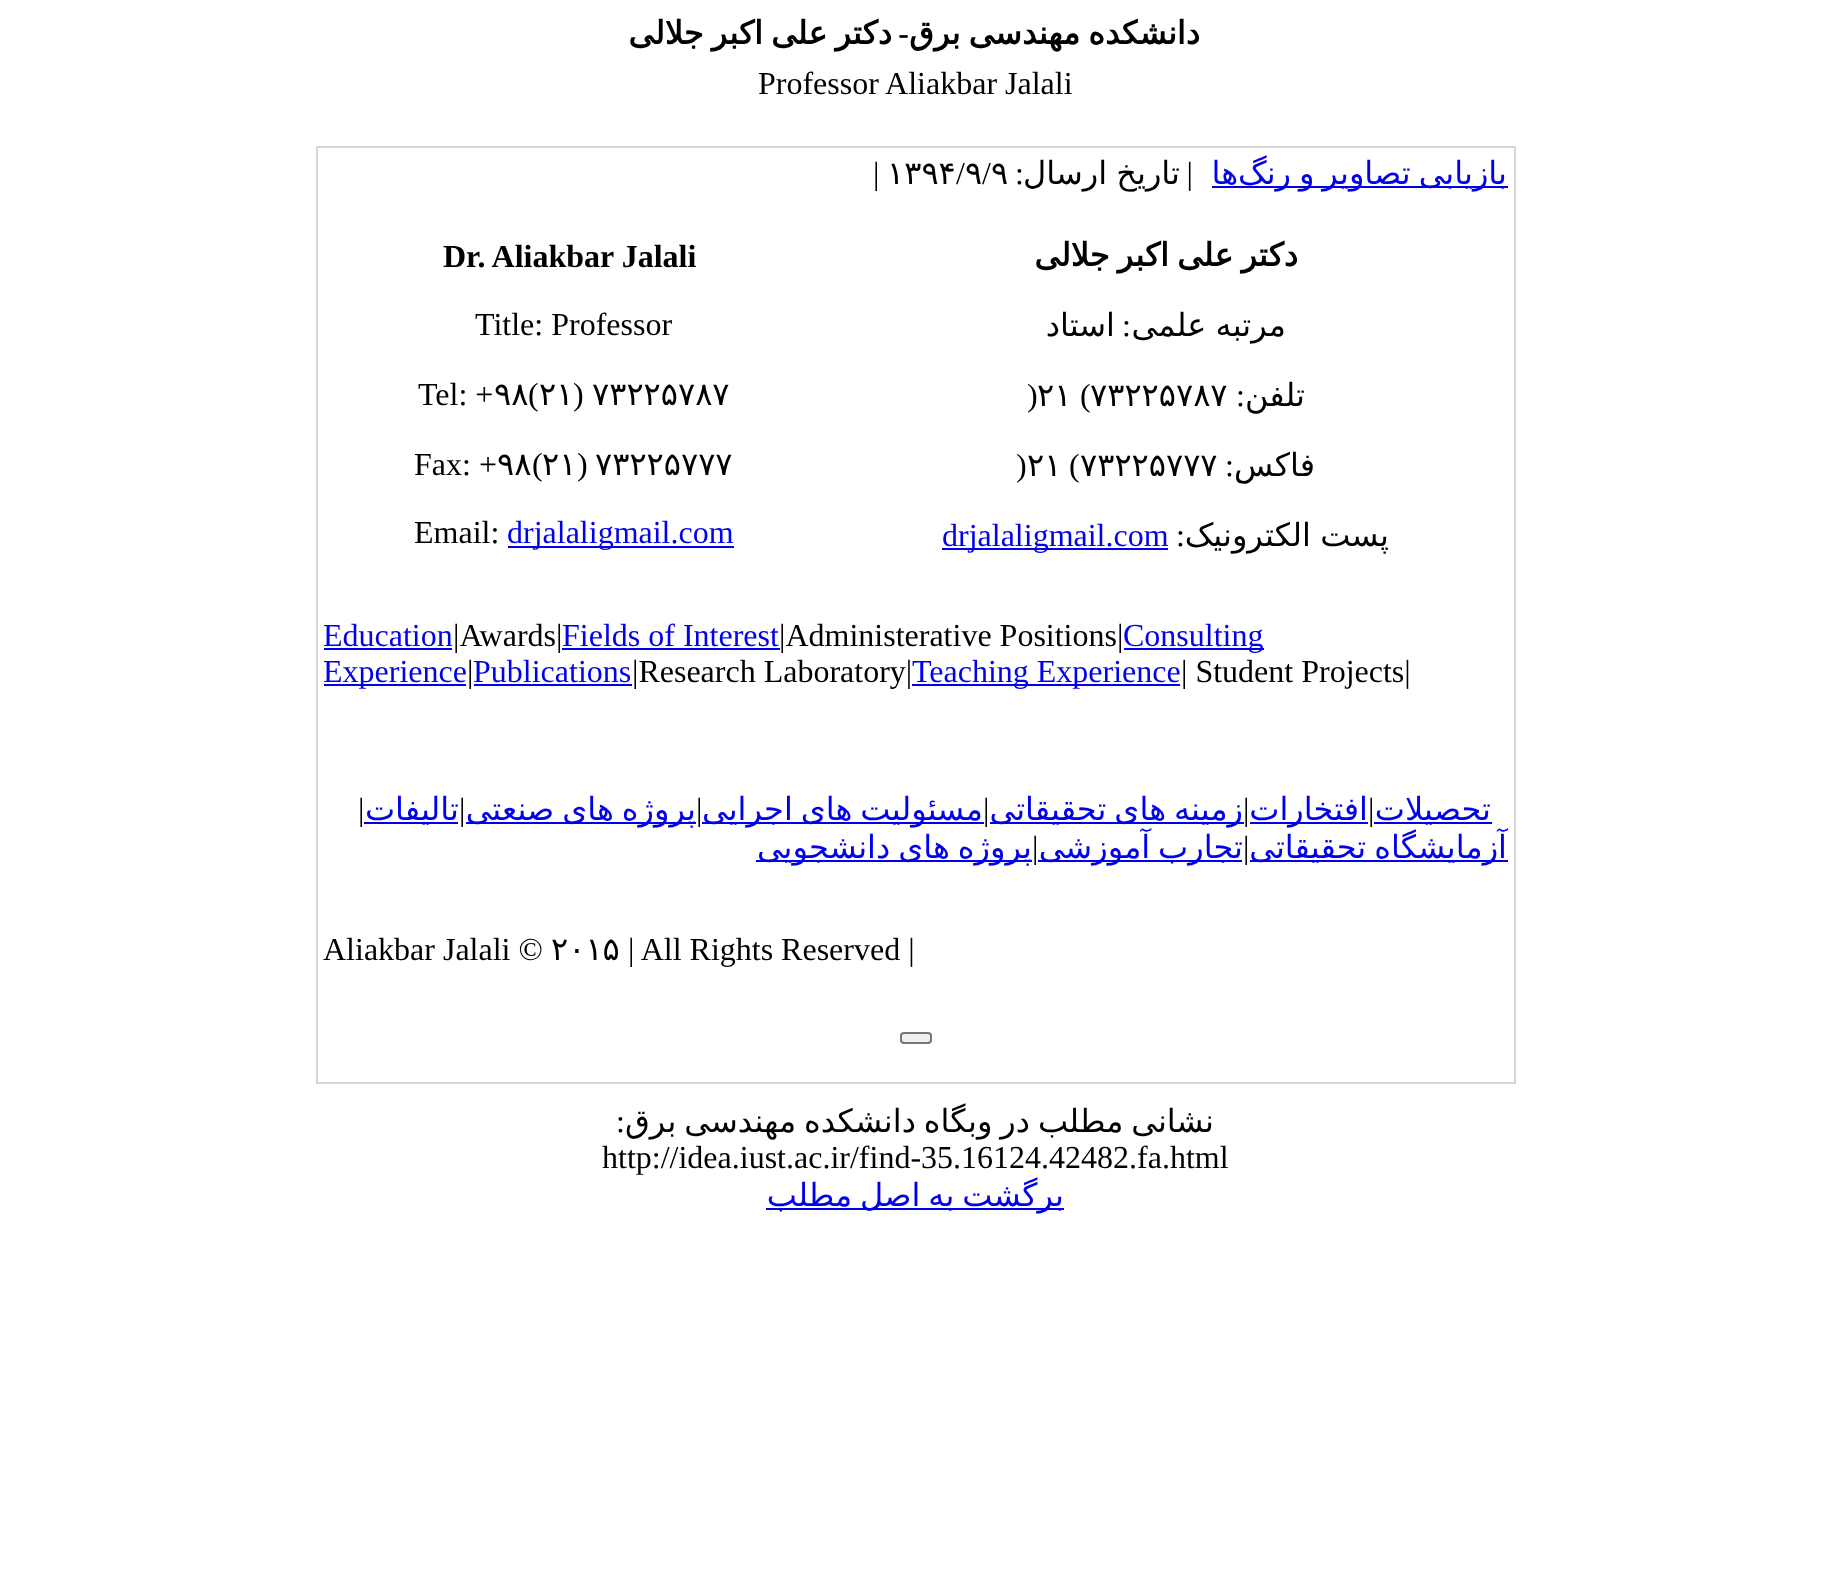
<svg xmlns="http://www.w3.org/2000/svg" width="1829" height="1582">
<rect width="100%" height="100%" fill="#fff"/>
<text x="892" y="44" word-spacing="-2.25" style="font-family:DejaVu Sans;font-size:32px;font-weight:bold;direction:rtl;fill:#000">دکتر علی اکبر جلالی</text>
<text x="909" y="44" style="font-family:Liberation Serif;font-size:32px;font-weight:bold;direction:rtl;fill:#000">-</text>
<text x="1200" y="44" word-spacing="-2.25" style="font-family:DejaVu Sans;font-size:32px;font-weight:bold;direction:rtl;fill:#000">دانشکده مهندسی برق</text>
<text x="758" y="94" style="font-family:Liberation Serif;font-size:32px;fill:#000">Professor Aliakbar Jalali</text>
<rect x="317" y="147" width="1198" height="936" fill="none" stroke="#d7d6d6" stroke-width="2"/>
<text x="873" y="184" style="font-family:Liberation Serif;font-size:32px;fill:#000">|</text>
<text x="887" y="184" style="font-family:DejaVu Sans;font-size:32px;fill:#000">۱۳۹۴</text>
<text x="956" y="184" style="font-family:Liberation Serif;font-size:32px;fill:#000">/</text>
<text x="965" y="184" style="font-family:DejaVu Sans;font-size:32px;fill:#000">۹</text>
<text x="982" y="184" style="font-family:Liberation Serif;font-size:32px;fill:#000">/</text>
<text x="991" y="184" style="font-family:DejaVu Sans;font-size:32px;fill:#000">۹</text>
<text x="1024" y="184" style="font-family:Liberation Serif;font-size:32px;direction:rtl;fill:#000">:</text>
<text x="1180" y="184" word-spacing="-1" style="font-family:DejaVu Sans;font-size:32px;direction:rtl;fill:#000">تاریخ ارسال</text>
<text x="1193" y="184" style="font-family:Liberation Serif;font-size:32px;direction:rtl;fill:#000">|</text>
<text x="1238" y="184" style="font-family:DejaVu Sans;font-size:32px;direction:rtl;fill:#00e">ها</text>
<rect x="1212" y="186" width="296" height="2" fill="#00e"/>
<text x="1507" y="184" word-spacing="-2.25" style="font-family:DejaVu Sans;font-size:32px;direction:rtl;fill:#00e">بازیابی تصاویر و رنگ</text>
<text x="443" y="267" style="font-family:Liberation Serif;font-size:32px;font-weight:bold;fill:#000">Dr. Aliakbar Jalali</text>
<text x="475" y="335" style="font-family:Liberation Serif;font-size:32px;fill:#000">Title: Professor</text>
<text x="418" y="405" style="font-family:Liberation Serif;font-size:32px;fill:#000">Tel: +</text>
<text x="494" y="405" style="font-family:DejaVu Sans;font-size:32px;fill:#000">۹۸</text>
<text x="528" y="405" style="font-family:Liberation Serif;font-size:32px;fill:#000">(</text>
<text x="539" y="405" style="font-family:DejaVu Sans;font-size:32px;fill:#000">۲۱</text>
<text x="573" y="405" style="font-family:Liberation Serif;font-size:32px;fill:#000">)</text>
<text x="592" y="405" style="font-family:DejaVu Sans;font-size:32px;fill:#000">۷۳۲۲۵۷۸۷</text>
<text x="414" y="475" style="font-family:Liberation Serif;font-size:32px;fill:#000">Fax: +</text>
<text x="497" y="475" style="font-family:DejaVu Sans;font-size:32px;fill:#000">۹۸</text>
<text x="532" y="475" style="font-family:Liberation Serif;font-size:32px;fill:#000">(</text>
<text x="542" y="475" style="font-family:DejaVu Sans;font-size:32px;fill:#000">۲۱</text>
<text x="577" y="475" style="font-family:Liberation Serif;font-size:32px;fill:#000">)</text>
<text x="595" y="475" style="font-family:DejaVu Sans;font-size:32px;fill:#000">۷۳۲۲۵۷۷۷</text>
<text x="414" y="543" style="font-family:Liberation Serif;font-size:32px;fill:#000">Email:</text>
<rect x="508" y="546" width="226" height="2" fill="#00e"/>
<text x="507" y="543" style="font-family:Liberation Serif;font-size:32px;fill:#00e">drjalaligmail.com</text>
<text x="1298" y="266" word-spacing="-2.25" style="font-family:DejaVu Sans;font-size:32px;font-weight:bold;direction:rtl;fill:#000">دکتر علی اکبر جلالی</text>
<text x="1115" y="336" style="font-family:DejaVu Sans;font-size:32px;direction:rtl;fill:#000">استاد</text>
<text x="1131" y="336" style="font-family:Liberation Serif;font-size:32px;direction:rtl;fill:#000">:</text>
<text x="1286" y="336" word-spacing="-1" style="font-family:DejaVu Sans;font-size:32px;direction:rtl;fill:#000">مرتبه علمی</text>
<text x="1027" y="406" style="font-family:Liberation Serif;font-size:32px;fill:#000">)</text>
<text x="1037" y="406" style="font-family:DejaVu Sans;font-size:32px;fill:#000">۲۱</text>
<text x="1080" y="406" style="font-family:Liberation Serif;font-size:32px;fill:#000">(</text>
<text x="1090" y="406" style="font-family:DejaVu Sans;font-size:32px;fill:#000">۷۳۲۲۵۷۸۷</text>
<text x="1245" y="406" style="font-family:Liberation Serif;font-size:32px;direction:rtl;fill:#000">:</text>
<text x="1305" y="406" style="font-family:DejaVu Sans;font-size:32px;direction:rtl;fill:#000">تلفن</text>
<text x="1016" y="476" style="font-family:Liberation Serif;font-size:32px;fill:#000">)</text>
<text x="1027" y="476" style="font-family:DejaVu Sans;font-size:32px;fill:#000">۲۱</text>
<text x="1069" y="476" style="font-family:Liberation Serif;font-size:32px;fill:#000">(</text>
<text x="1080" y="476" style="font-family:DejaVu Sans;font-size:32px;fill:#000">۷۳۲۲۵۷۷۷</text>
<text x="1234" y="476" style="font-family:Liberation Serif;font-size:32px;direction:rtl;fill:#000">:</text>
<text x="1315" y="476" style="font-family:DejaVu Sans;font-size:32px;direction:rtl;fill:#000">فاکس</text>
<rect x="942" y="548" width="226" height="2" fill="#00e"/>
<text x="942" y="546" style="font-family:Liberation Serif;font-size:32px;fill:#00e">drjalaligmail.com</text>
<text x="1185" y="546" style="font-family:Liberation Serif;font-size:32px;direction:rtl;fill:#000">:</text>
<text x="1389" y="546" word-spacing="-1" style="font-family:DejaVu Sans;font-size:32px;direction:rtl;fill:#000">پست الکترونیک</text>
<text x="323" y="646" style="font-family:Liberation Serif;font-size:32px;fill:#00e">Education</text>
<rect x="324" y="648" width="128" height="2" fill="#00e"/>
<text x="453" y="646" style="font-family:Liberation Serif;font-size:32px;fill:#000">|Awards|</text>
<text x="562" y="646" style="font-family:Liberation Serif;font-size:32px;fill:#00e">Fields of Interest</text>
<rect x="562" y="648" width="218" height="2" fill="#00e"/>
<text x="779" y="646" style="font-family:Liberation Serif;font-size:32px;fill:#000">|Administerative Positions|</text>
<rect x="1124" y="648" width="140" height="2" fill="#00e"/>
<text x="1123" y="646" style="font-family:Liberation Serif;font-size:32px;fill:#00e">Consulting</text>
<rect x="324" y="684" width="142" height="2" fill="#00e"/>
<text x="323" y="682" style="font-family:Liberation Serif;font-size:32px;fill:#00e">Experience</text>
<text x="467" y="682" style="font-family:Liberation Serif;font-size:32px;fill:#000">|</text>
<text x="473" y="682" style="font-family:Liberation Serif;font-size:32px;fill:#00e">Publications</text>
<rect x="474" y="684" width="158" height="2" fill="#00e"/>
<text x="632" y="682" style="font-family:Liberation Serif;font-size:32px;fill:#000">|Research Laboratory|</text>
<rect x="912" y="684" width="268" height="2" fill="#00e"/>
<text x="912" y="682" style="font-family:Liberation Serif;font-size:32px;fill:#00e">Teaching Experience</text>
<text x="1181" y="682" style="font-family:Liberation Serif;font-size:32px;fill:#000">| Student Projects|</text>
<text x="358" y="820" style="font-family:Liberation Serif;font-size:32px;fill:#000">|</text>
<rect x="364" y="822" width="94" height="2" fill="#00e"/>
<text x="459" y="820" style="font-family:DejaVu Sans;font-size:32px;direction:rtl;fill:#00e">تالیفات</text>
<text x="459" y="820" style="font-family:Liberation Serif;font-size:32px;fill:#000">|</text>
<rect x="466" y="822" width="230" height="2" fill="#00e"/>
<text x="696" y="820" style="font-family:Liberation Serif;font-size:32px;fill:#000">|</text>
<text x="696" y="820" word-spacing="-2.25" style="font-family:DejaVu Sans;font-size:32px;direction:rtl;fill:#00e">پروژه های صنعتی</text>
<rect x="702" y="822" width="282" height="2" fill="#00e"/>
<text x="983" y="820" word-spacing="-2.25" style="font-family:DejaVu Sans;font-size:32px;direction:rtl;fill:#00e">مسئولیت های اجرایی</text>
<rect x="990" y="822" width="254" height="2" fill="#00e"/>
<text x="1243" y="820" style="font-family:Liberation Serif;font-size:32px;fill:#000">|</text>
<text x="1243" y="820" word-spacing="-2.25" style="font-family:DejaVu Sans;font-size:32px;direction:rtl;fill:#00e">زمینه های تحقیقاتی</text>
<rect x="1250" y="822" width="118" height="2" fill="#00e"/>
<text x="1368" y="820" style="font-family:DejaVu Sans;font-size:32px;direction:rtl;fill:#00e">افتخارات</text>
<rect x="1374" y="822" width="118" height="2" fill="#00e"/>
<text x="1491" y="820" style="font-family:DejaVu Sans;font-size:32px;direction:rtl;fill:#00e">تحصیلات</text>
<text x="983" y="820" style="font-family:Liberation Serif;font-size:32px;fill:#000">|</text>
<text x="1368" y="820" style="font-family:Liberation Serif;font-size:32px;fill:#000">|</text>
<rect x="756" y="860" width="276" height="2" fill="#00e"/>
<text x="1032" y="858" style="font-family:Liberation Serif;font-size:32px;fill:#000">|</text>
<text x="1032" y="858" word-spacing="-2.25" style="font-family:DejaVu Sans;font-size:32px;direction:rtl;fill:#00e">پروژه های دانشجویی</text>
<rect x="1038" y="860" width="204" height="2" fill="#00e"/>
<text x="1243" y="858" word-spacing="-2.25" style="font-family:DejaVu Sans;font-size:32px;direction:rtl;fill:#00e">تجارب آموزشی</text>
<rect x="1250" y="860" width="258" height="2" fill="#00e"/>
<text x="1507" y="858" word-spacing="-2.25" style="font-family:DejaVu Sans;font-size:32px;direction:rtl;fill:#00e">آزمایشگاه تحقیقاتی</text>
<text x="1243" y="858" style="font-family:Liberation Serif;font-size:32px;fill:#000">|</text>
<text x="323" y="960" style="font-family:Liberation Serif;font-size:32px;fill:#000">Aliakbar Jalali ©</text>
<text x="551" y="960" style="font-family:DejaVu Sans;font-size:32px;fill:#000">۲۰۱۵</text>
<text x="628" y="960" style="font-family:Liberation Serif;font-size:32px;fill:#000">| All Rights Reserved |</text>
<rect x="901" y="1033" width="30" height="10" rx="3" fill="#efefef" stroke="#767676" stroke-width="2"/>
<text x="625" y="1132" style="font-family:Liberation Serif;font-size:32px;direction:rtl;fill:#000">:</text>
<text x="1214" y="1132" word-spacing="-2.25" style="font-family:DejaVu Sans;font-size:32px;direction:rtl;fill:#000">نشانی مطلب در وبگاه دانشکده مهندسی برق</text>
<text x="602" y="1168" style="font-family:Liberation Serif;font-size:32px;fill:#000">http://idea.iust.ac.ir/find-35.16124.42482.fa.html</text>
<rect x="766" y="1208" width="298" height="2" fill="#00e"/>
<text x="1064" y="1206" word-spacing="-2.25" style="font-family:DejaVu Sans;font-size:32px;direction:rtl;fill:#00e">برگشت به اصل مطلب</text>
</svg>
